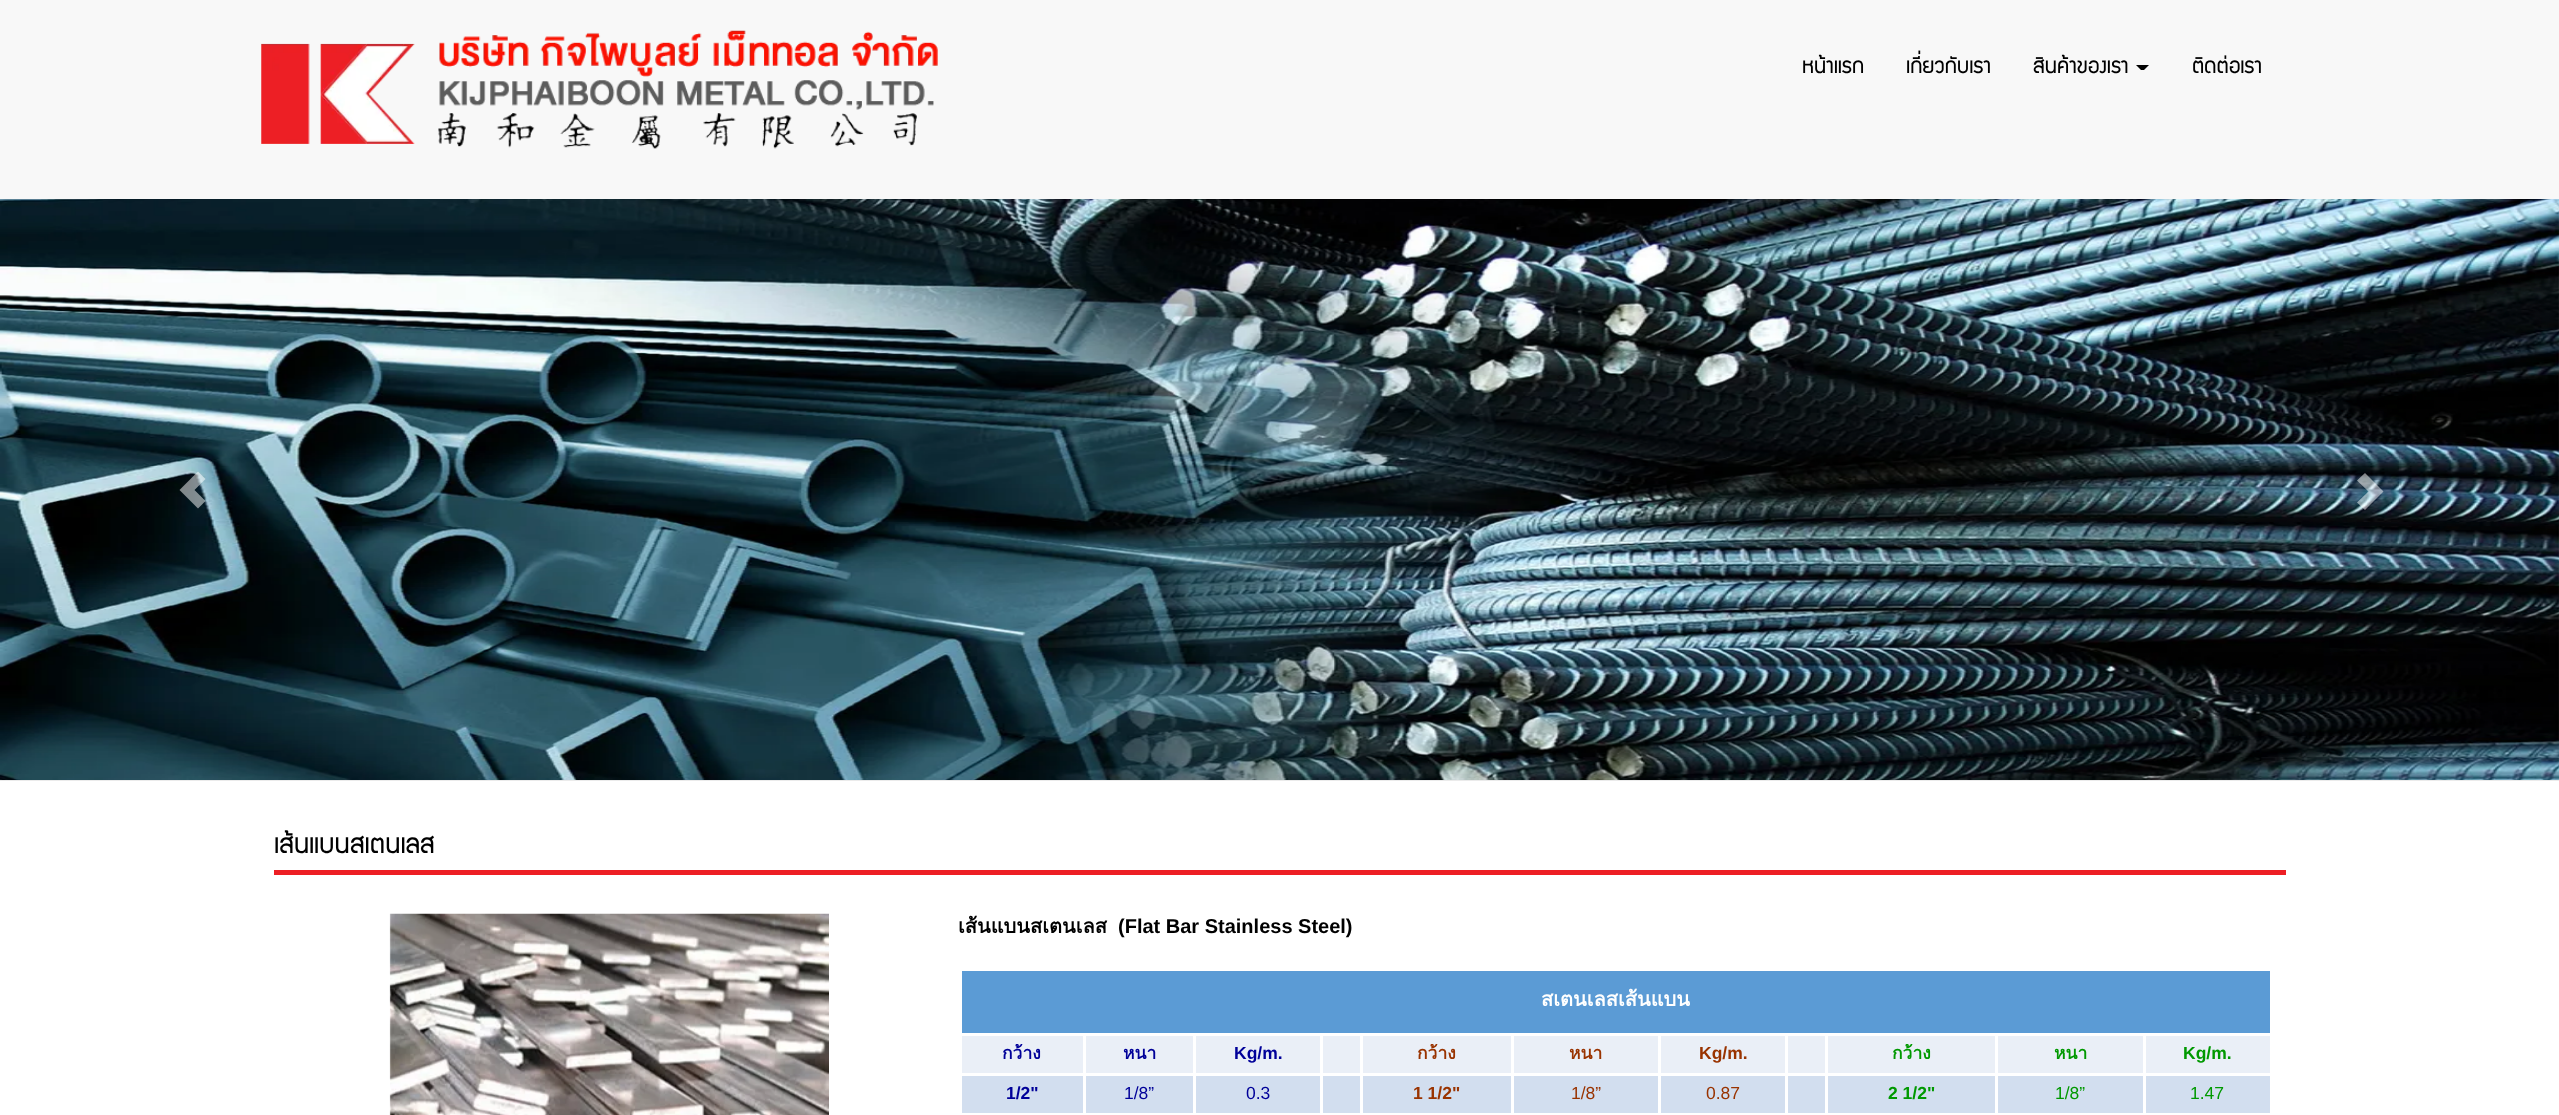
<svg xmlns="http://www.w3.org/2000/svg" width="2559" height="1115">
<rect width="100%" height="100%" fill="#fff"/>
<rect width="2559" height="199" fill="#f8f8f8"/>
<image x="261" y="30" width="677" height="119" href="media/1.png"/>
<text x="1802" y="73" style="font-family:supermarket;font-size:24px;fill:#000">หน้าแรก</text>
<text x="1906" y="73" style="font-family:supermarket;font-size:24px;fill:#000">เกี่ยวกับเรา</text>
<text x="2033" y="73" style="font-family:supermarket;font-size:24px;fill:#000">สินค้าของเรา</text>
<path d="M2136 65h13l-5 5h-3z" fill="#000"/>
<text x="2192" y="73" style="font-family:supermarket;font-size:24px;fill:#000">ติดต่อเรา</text>
<image x="0" y="199" width="2559" height="581" href="media/2.png"/>
<path d="M179.5 490l18.5 18.5l7.5-7.5l-11-11l11-11l-7.5-7.5z" fill="#ffffff80"/>
<path d="M2357 502.5l11.5-11l-11.5-11l8-7.5l18.5 18.5l-18.5 18.5z" fill="#ffffff80"/>
<rect y="780" width="2559" height="1" fill="#ebebeb"/>
<text x="274" y="853" style="font-family:supermarket;font-size:30px;fill:#000">เส้นแบนสเตนเลส</text>
<rect x="274" y="870" width="2012" height="5" fill="#ed1f24"/>
<image x="389" y="913" width="440" height="202" href="media/3.png"/>
<text x="958" y="933" style="font-family:Loma;font-size:20px;font-weight:bold;fill:#000">เส้นแบนสเตนเลส</text>
<text x="1118" y="933" style="font-family:Liberation Sans;font-size:20px;font-weight:bold;fill:#000">(Flat Bar Stainless Steel)</text>
<rect x="962" y="971" width="1308" height="62" fill="#5b9bd5"/>
<text x="1541" y="1006" style="font-family:Loma;font-size:20px;font-weight:bold;fill:#fff">สเตนเลสเส้นแบน</text>
<rect x="962" y="1036" width="1308" height="37" fill="#eaeff7"/>
<text x="1002" y="1059" style="font-family:Loma;font-size:17.5px;font-weight:bold;fill:#009">กว้าง</text>
<text x="1123" y="1059" style="font-family:Loma;font-size:17.5px;font-weight:bold;fill:#009">หนา</text>
<text x="1234" y="1059" style="font-family:Liberation Sans;font-size:17.5px;font-weight:bold;fill:#009">Kg/m.</text>
<text x="1417" y="1059" style="font-family:Loma;font-size:17.5px;font-weight:bold;fill:#930">กว้าง</text>
<text x="1569" y="1059" style="font-family:Loma;font-size:17.5px;font-weight:bold;fill:#930">หนา</text>
<text x="1699" y="1059" style="font-family:Liberation Sans;font-size:17.5px;font-weight:bold;fill:#930">Kg/m.</text>
<text x="1892" y="1059" style="font-family:Loma;font-size:17.5px;font-weight:bold;fill:#090">กว้าง</text>
<text x="2054" y="1059" style="font-family:Loma;font-size:17.5px;font-weight:bold;fill:#090">หนา</text>
<text x="2183" y="1059" style="font-family:Liberation Sans;font-size:17.5px;font-weight:bold;fill:#090">Kg/m.</text>
<rect x="962" y="1076" width="1308" height="37" fill="#d2deef"/>
<text x="1006" y="1099" style="font-family:Liberation Sans;font-size:17.5px;font-weight:bold;fill:#009">1/2"</text>
<rect x="1083" y="1033" width="3" height="82" fill="#fff"/>
<text x="1124" y="1099" style="font-family:Liberation Sans;font-size:17.5px;fill:#009">1/8”</text>
<rect x="1193" y="1033" width="3" height="82" fill="#fff"/>
<text x="1246" y="1099" style="font-family:Liberation Sans;font-size:17.5px;fill:#009">0.3</text>
<rect x="1320" y="1033" width="3" height="82" fill="#fff"/>
<rect x="1360" y="1033" width="3" height="82" fill="#fff"/>
<text x="1413" y="1099" style="font-family:Liberation Sans;font-size:17.5px;font-weight:bold;fill:#930">1 1/2"</text>
<rect x="1511" y="1033" width="3" height="82" fill="#fff"/>
<text x="1571" y="1099" style="font-family:Liberation Sans;font-size:17.5px;fill:#930">1/8”</text>
<rect x="1658" y="1033" width="3" height="82" fill="#fff"/>
<text x="1706" y="1099" style="font-family:Liberation Sans;font-size:17.5px;fill:#930">0.87</text>
<rect x="1785" y="1033" width="3" height="82" fill="#fff"/>
<rect x="1825" y="1033" width="3" height="82" fill="#fff"/>
<text x="1888" y="1099" style="font-family:Liberation Sans;font-size:17.5px;font-weight:bold;fill:#090">2 1/2"</text>
<rect x="1995" y="1033" width="3" height="82" fill="#fff"/>
<text x="2055" y="1099" style="font-family:Liberation Sans;font-size:17.5px;fill:#090">1/8”</text>
<rect x="2143" y="1033" width="3" height="82" fill="#fff"/>
<text x="2190" y="1099" style="font-family:Liberation Sans;font-size:17.5px;fill:#090">1.47</text>
</svg>
